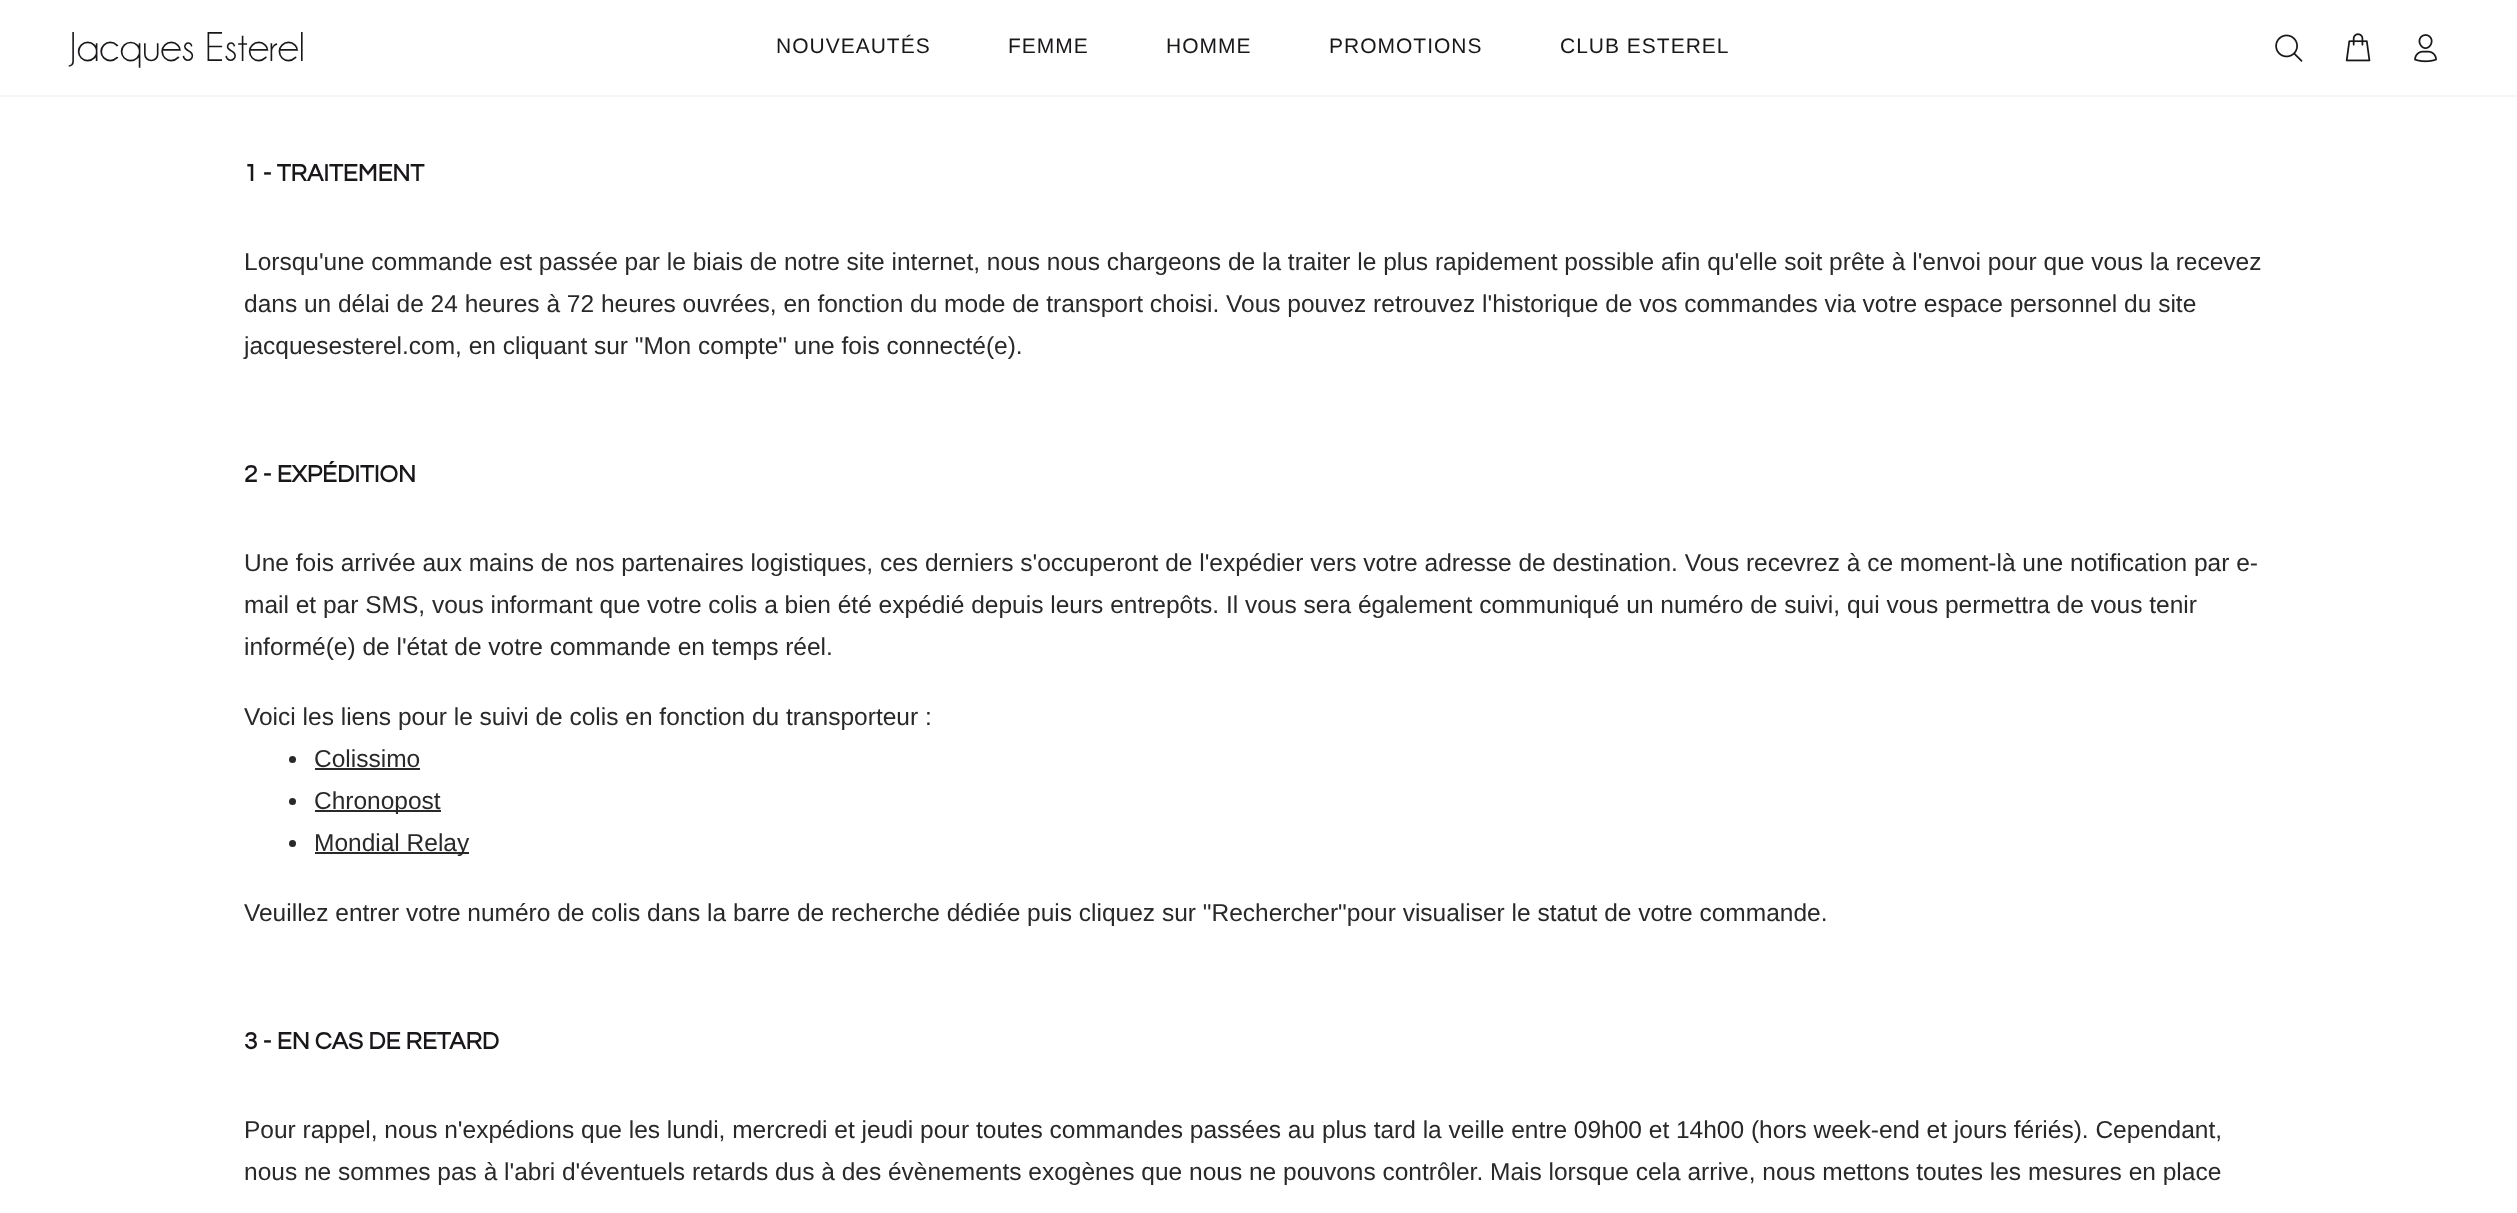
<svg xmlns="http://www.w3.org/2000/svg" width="2517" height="1213">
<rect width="100%" height="100%" fill="#fff"/>
<rect y="95" width="2517" height="2" fill="#f5f5f5"/>
<text x="70" y="61" style="font-family:'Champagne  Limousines';font-size:42px;fill:#1a171b">Jacques Esterel</text>
<text x="776" y="53" style="font-family:Liberation Sans;font-size:21px;letter-spacing:1px;fill:#1a171b">NOUVEAUTÉS</text>
<text x="1008" y="53" style="font-family:Liberation Sans;font-size:21px;letter-spacing:1px;fill:#1a171b">FEMME</text>
<text x="1166" y="53" style="font-family:Liberation Sans;font-size:21px;letter-spacing:1px;fill:#1a171b">HOMME</text>
<text x="1329" y="53" style="font-family:Liberation Sans;font-size:21px;letter-spacing:1px;fill:#1a171b">PROMOTIONS</text>
<text x="1560" y="53" style="font-family:Liberation Sans;font-size:21px;letter-spacing:1px;fill:#1a171b">CLUB ESTEREL</text>
<image x="2275" y="34" width="28" height="28" href="media/1.png"/>
<image x="2345" y="33" width="26" height="29" href="media/2.png"/>
<image x="2414" y="34" width="23" height="29" href="media/3.png"/>
<text x="244" y="181" style="font-family:Questrial;font-size:24.5px;font-weight:bold;fill:#1a171b">1 - TRAITEMENT</text>
<text x="244" y="270" style="font-family:Liberation Sans;font-size:24.5px;fill:#292929">Lorsqu'une commande est passée par le biais de notre site internet, nous nous chargeons de la traiter le plus rapidement possible afin qu'elle soit prête à l'envoi pour que vous la recevez</text>
<text x="244" y="312" style="font-family:Liberation Sans;font-size:24.5px;fill:#292929">dans un délai de 24 heures à 72 heures ouvrées, en fonction du mode de transport choisi. Vous pouvez retrouvez l'historique de vos commandes via votre espace personnel du site</text>
<text x="244" y="354" style="font-family:Liberation Sans;font-size:24.5px;fill:#292929">jacquesesterel.com, en cliquant sur "Mon compte" une fois connecté(e).</text>
<text x="244" y="482" style="font-family:Questrial;font-size:24.5px;font-weight:bold;fill:#1a171b">2 - EXPÉDITION</text>
<text x="244" y="571" style="font-family:Liberation Sans;font-size:24.5px;fill:#292929">Une fois arrivée aux mains de nos partenaires logistiques, ces derniers s'occuperont de l'expédier vers votre adresse de destination. Vous recevrez à ce moment-là une notification par e-</text>
<text x="244" y="613" style="font-family:Liberation Sans;font-size:24.5px;fill:#292929">mail et par SMS, vous informant que votre colis a bien été expédié depuis leurs entrepôts. Il vous sera également communiqué un numéro de suivi, qui vous permettra de vous tenir</text>
<text x="244" y="655" style="font-family:Liberation Sans;font-size:24.5px;fill:#292929">informé(e) de l'état de votre commande en temps réel.</text>
<text x="244" y="725" style="font-family:Liberation Sans;font-size:24.5px;fill:#292929">Voici les liens pour le suivi de colis en fonction du transporteur :</text>
<circle cx="292.5" cy="759.5" r="3.5" fill="#292929"/>
<text x="314" y="767" style="font-family:Liberation Sans;font-size:24.5px;fill:#292929">Colissimo</text>
<rect x="315" y="768" width="105" height="2" fill="#292929"/>
<circle cx="292.5" cy="801.5" r="3.5" fill="#292929"/>
<rect x="315" y="810" width="126" height="2" fill="#292929"/>
<text x="314" y="809" style="font-family:Liberation Sans;font-size:24.5px;fill:#292929">Chronopost</text>
<circle cx="292.5" cy="843.5" r="3.5" fill="#292929"/>
<rect x="315" y="852" width="154" height="2" fill="#292929"/>
<text x="314" y="851" style="font-family:Liberation Sans;font-size:24.5px;fill:#292929">Mondial Relay</text>
<text x="244" y="921" style="font-family:Liberation Sans;font-size:24.5px;fill:#292929">Veuillez entrer votre numéro de colis dans la barre de recherche dédiée puis cliquez sur "Rechercher"pour visualiser le statut de votre commande.</text>
<text x="244" y="1049" style="font-family:Questrial;font-size:24.5px;font-weight:bold;fill:#1a171b">3 - EN CAS DE RETARD</text>
<text x="244" y="1138" style="font-family:Liberation Sans;font-size:24.5px;fill:#292929">Pour rappel, nous n'expédions que les lundi, mercredi et jeudi pour toutes commandes passées au plus tard la veille entre 09h00 et 14h00 (hors week-end et jours fériés). Cependant,</text>
<text x="244" y="1180" style="font-family:Liberation Sans;font-size:24.5px;fill:#292929">nous ne sommes pas à l'abri d'éventuels retards dus à des évènements exogènes que nous ne pouvons contrôler. Mais lorsque cela arrive, nous mettons toutes les mesures en place</text>
</svg>
